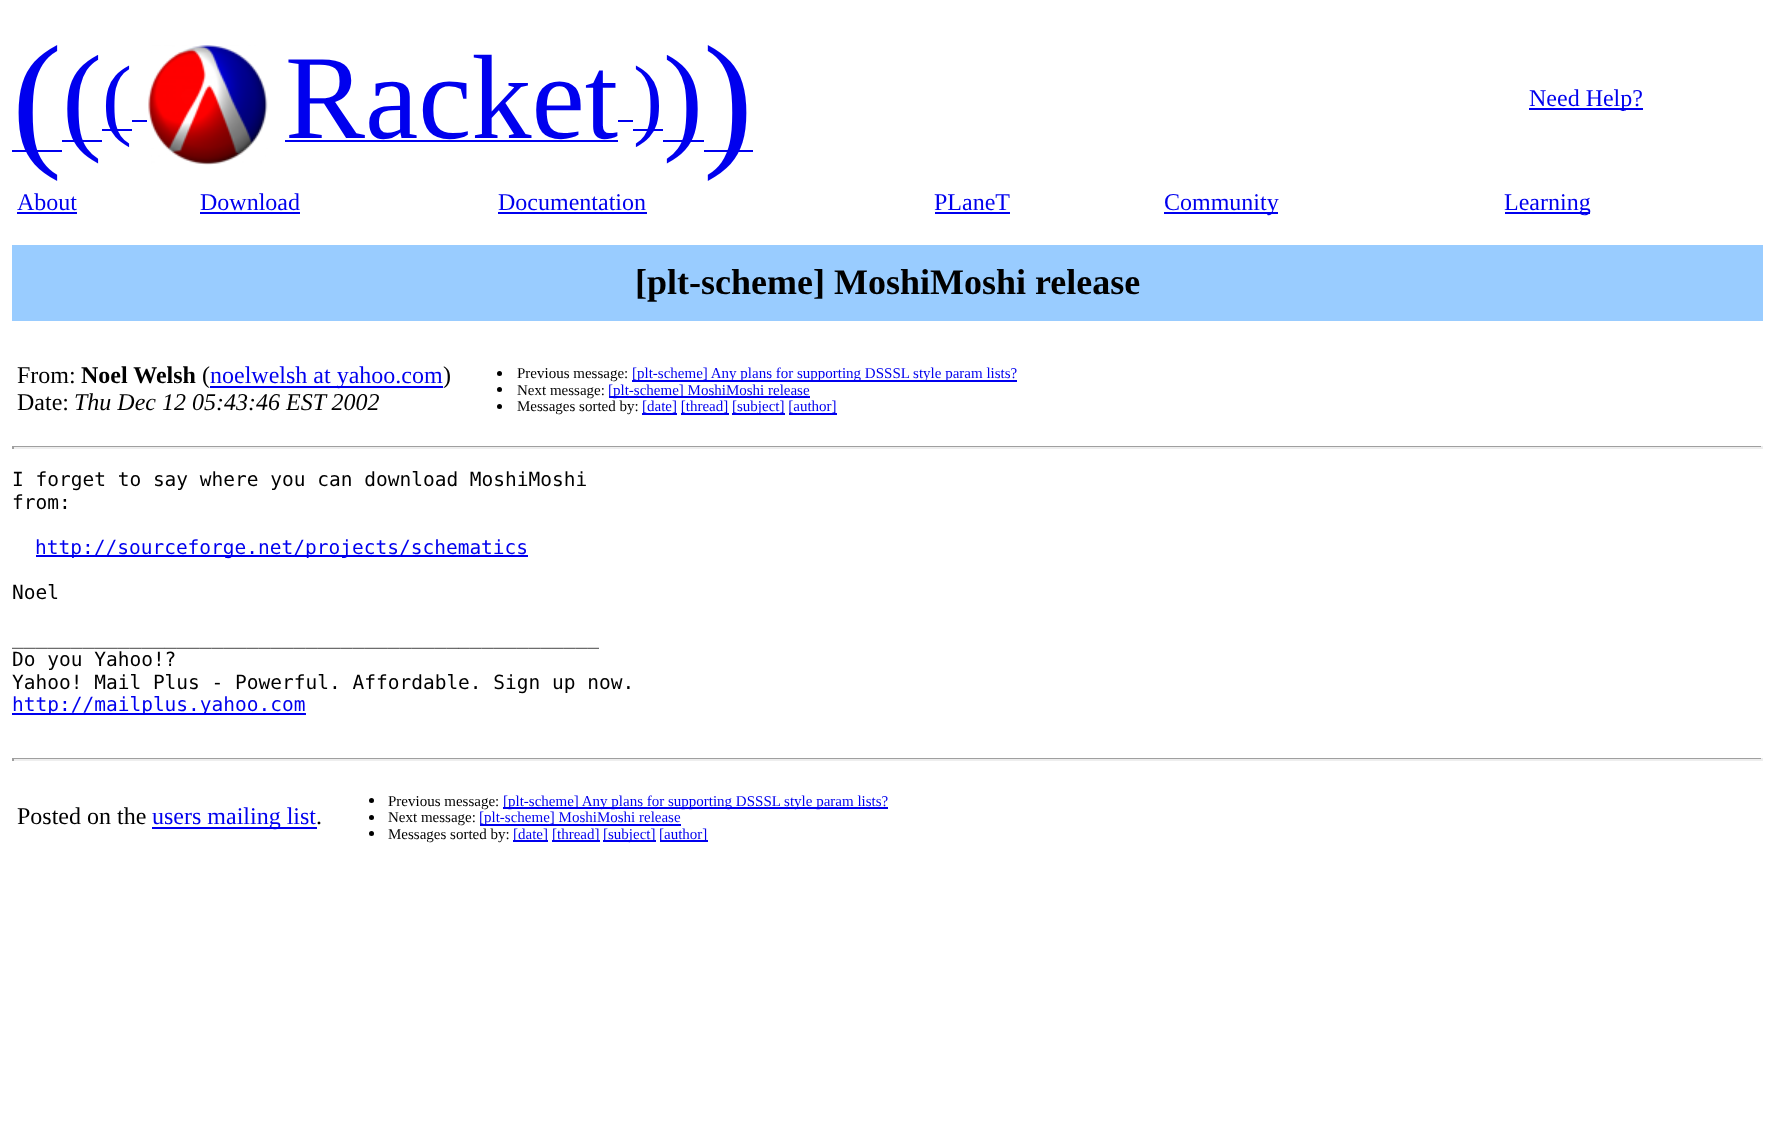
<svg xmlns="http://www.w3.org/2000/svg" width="1774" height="1131">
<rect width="100%" height="100%" fill="#fff"/>
<rect x="12" y="150" width="50" height="2" fill="#00e"/>
<text x="12" y="149" style="font-family:Liberation Serif;font-size:150px;fill:#00e">(</text>
<rect x="62" y="140" width="40" height="2" fill="#00e"/>
<text x="62" y="138" style="font-family:Liberation Serif;font-size:120px;fill:#00e">(</text>
<rect x="102" y="129" width="30" height="2" fill="#00e"/>
<text x="102" y="128" style="font-family:Liberation Serif;font-size:90px;fill:#00e">(</text>
<rect x="132" y="120" width="15" height="2" fill="#00e"/>
<image x="148" y="45" width="120" height="120" href="media/1.png"/>
<text x="285" y="138" style="font-family:Liberation Serif;font-size:120px;fill:#00e">Racket</text>
<rect x="633" y="129" width="30" height="2" fill="#00e"/>
<text x="633" y="128" style="font-family:Liberation Serif;font-size:90px;fill:#00e">)</text>
<rect x="285" y="140" width="333" height="2" fill="#00e"/>
<rect x="618" y="120" width="15" height="2" fill="#00e"/>
<rect x="663" y="140" width="41" height="2" fill="#00e"/>
<text x="663" y="138" style="font-family:Liberation Serif;font-size:120px;fill:#00e">)</text>
<rect x="704" y="150" width="49" height="2" fill="#00e"/>
<text x="703" y="149" style="font-family:Liberation Serif;font-size:150px;fill:#00e">)</text>
<rect x="1529" y="108" width="114" height="2" fill="#00e"/>
<text x="1529" y="106" style="font-family:Liberation Serif;font-size:24px;fill:#00e">Need Help?</text>
<text x="17" y="210" style="font-family:Liberation Serif;font-size:24px;fill:#00e">About</text>
<rect x="17" y="212" width="60" height="2" fill="#00e"/>
<text x="200" y="210" style="font-family:Liberation Serif;font-size:24px;fill:#00e">Download</text>
<rect x="200" y="212" width="100" height="2" fill="#00e"/>
<text x="498" y="210" style="font-family:Liberation Serif;font-size:24px;fill:#00e">Documentation</text>
<rect x="498" y="212" width="149" height="2" fill="#00e"/>
<text x="934" y="210" style="font-family:Liberation Serif;font-size:24px;fill:#00e">PLaneT</text>
<rect x="935" y="212" width="75" height="2" fill="#00e"/>
<rect x="1164" y="212" width="114" height="2" fill="#00e"/>
<text x="1164" y="210" style="font-family:Liberation Serif;font-size:24px;fill:#00e">Community</text>
<rect x="1505" y="212" width="85" height="2" fill="#00e"/>
<text x="1504" y="210" style="font-family:Liberation Serif;font-size:24px;fill:#00e">Learning</text>
<rect x="12" y="245" width="1751" height="76" fill="#9cf"/>
<text x="635" y="294" style="font-family:Liberation Serif;font-size:36px;font-weight:bold;fill:#000">[plt-scheme] MoshiMoshi release</text>
<text x="17" y="383" style="font-family:Liberation Serif;font-size:24px;fill:#000">From:</text>
<text x="81" y="383" style="font-family:Liberation Serif;font-size:24px;font-weight:bold;fill:#000">Noel Welsh</text>
<text x="202" y="383" style="font-family:Liberation Serif;font-size:24px;fill:#000">(</text>
<rect x="210" y="386" width="233" height="2" fill="#00e"/>
<text x="210" y="383" style="font-family:Liberation Serif;font-size:24px;fill:#00e">noelwelsh at yahoo.com</text>
<text x="443" y="383" style="font-family:Liberation Serif;font-size:24px;fill:#000">)</text>
<text x="17" y="410" style="font-family:Liberation Serif;font-size:24px;fill:#000">Date:</text>
<text x="74" y="410" style="font-family:Liberation Serif;font-size:24px;font-style:italic;fill:#000">Thu Dec 12 05:43:46 EST 2002</text>
<circle cx="499.5" cy="373.5" r="2.5" fill="#000"/>
<text x="517" y="378" style="font-family:Liberation Serif;font-size:15px;fill:#000">Previous message:</text>
<rect x="632" y="380" width="385" height="2" fill="#00e"/>
<text x="632" y="378" style="font-family:Liberation Serif;font-size:15px;fill:#00e">[plt-scheme] Any plans for supporting DSSSL style param lists?</text>
<circle cx="499.5" cy="389.5" r="2.5" fill="#000"/>
<text x="517" y="395" style="font-family:Liberation Serif;font-size:15px;fill:#000">Next message:</text>
<rect x="609" y="396" width="201" height="2" fill="#00e"/>
<text x="608" y="395" style="font-family:Liberation Serif;font-size:15px;fill:#00e">[plt-scheme] MoshiMoshi release</text>
<circle cx="499.5" cy="406.5" r="2.5" fill="#000"/>
<text x="517" y="411" style="font-family:Liberation Serif;font-size:15px;fill:#000">Messages sorted by:</text>
<text x="642" y="411" style="font-family:Liberation Serif;font-size:15px;fill:#00e">[date] [thread]</text>
<rect x="642" y="413" width="35" height="2" fill="#00e"/>
<rect x="732" y="413" width="53" height="2" fill="#00e"/>
<text x="732" y="411" style="font-family:Liberation Serif;font-size:15px;fill:#00e">[subject] [author]</text>
<rect x="681" y="413" width="48" height="2" fill="#00e"/>
<rect x="789" y="413" width="48" height="2" fill="#00e"/>
<rect x="12" y="446" width="1751" height="1" fill="#9f9f9f"/>
<rect x="1761" y="446" width="2" height="3" fill="#eee"/>
<rect x="12" y="447" width="1751" height="2" fill="#eee"/>
<rect x="12" y="446" width="2" height="3" fill="#9f9f9f"/>
<text x="12" y="486" style="font-family:DejaVu Sans Mono;font-size:19.5px;fill:#000">I forget to say where you can download MoshiMoshi</text>
<text x="12" y="509" style="font-family:DejaVu Sans Mono;font-size:19.5px;fill:#000">from:</text>
<rect x="36" y="555" width="492" height="2" fill="#00e"/>
<text x="35" y="554" style="font-family:DejaVu Sans Mono;font-size:19.5px;fill:#00e">http://sourceforge.net/projects/schematics</text>
<text x="12" y="599" style="font-family:DejaVu Sans Mono;font-size:19.5px;fill:#000">Noel</text>
<text x="12" y="644" style="font-family:DejaVu Sans Mono;font-size:19.5px;fill:#000">__________________________________________________</text>
<text x="12" y="666" style="font-family:DejaVu Sans Mono;font-size:19.5px;fill:#000">Do you Yahoo!?</text>
<text x="12" y="689" style="font-family:DejaVu Sans Mono;font-size:19.5px;fill:#000">Yahoo! Mail Plus - Powerful. Affordable. Sign up now.</text>
<rect x="12" y="713" width="294" height="2" fill="#00e"/>
<text x="12" y="711" style="font-family:DejaVu Sans Mono;font-size:19.5px;fill:#00e">http://mailplus.yahoo.com</text>
<rect x="12" y="758" width="1751" height="1" fill="#9f9f9f"/>
<rect x="1761" y="758" width="2" height="3" fill="#eee"/>
<rect x="12" y="759" width="1751" height="2" fill="#eee"/>
<rect x="12" y="758" width="2" height="3" fill="#9f9f9f"/>
<text x="17" y="824" style="font-family:Liberation Serif;font-size:24px;fill:#000">Posted on the</text>
<rect x="152" y="827" width="165" height="2" fill="#00e"/>
<text x="152" y="824" style="font-family:Liberation Serif;font-size:24px;fill:#00e">users mailing list</text>
<text x="316" y="824" style="font-family:Liberation Serif;font-size:24px;fill:#000">.</text>
<circle cx="371.5" cy="800.5" r="2.5" fill="#000"/>
<text x="388" y="806" style="font-family:Liberation Serif;font-size:15px;fill:#000">Previous message:</text>
<rect x="503" y="807" width="385" height="2" fill="#00e"/>
<text x="503" y="806" style="font-family:Liberation Serif;font-size:15px;fill:#00e">[plt-scheme] Any plans for supporting DSSSL style param lists?</text>
<circle cx="371.5" cy="817.5" r="2.5" fill="#000"/>
<text x="388" y="822" style="font-family:Liberation Serif;font-size:15px;fill:#000">Next message:</text>
<rect x="480" y="824" width="201" height="2" fill="#00e"/>
<text x="479" y="822" style="font-family:Liberation Serif;font-size:15px;fill:#00e">[plt-scheme] MoshiMoshi release</text>
<circle cx="371.5" cy="833.5" r="2.5" fill="#000"/>
<text x="388" y="839" style="font-family:Liberation Serif;font-size:15px;fill:#000">Messages sorted by:</text>
<rect x="513" y="840" width="35" height="2" fill="#00e"/>
<text x="513" y="839" style="font-family:Liberation Serif;font-size:15px;fill:#00e">[date]</text>
<rect x="552" y="840" width="48" height="2" fill="#00e"/>
<text x="552" y="839" style="font-family:Liberation Serif;font-size:15px;fill:#00e">[thread]</text>
<rect x="603" y="840" width="53" height="2" fill="#00e"/>
<text x="603" y="839" style="font-family:Liberation Serif;font-size:15px;fill:#00e">[subject]</text>
<rect x="660" y="840" width="48" height="2" fill="#00e"/>
<text x="659" y="839" style="font-family:Liberation Serif;font-size:15px;fill:#00e">[author]</text>
</svg>
